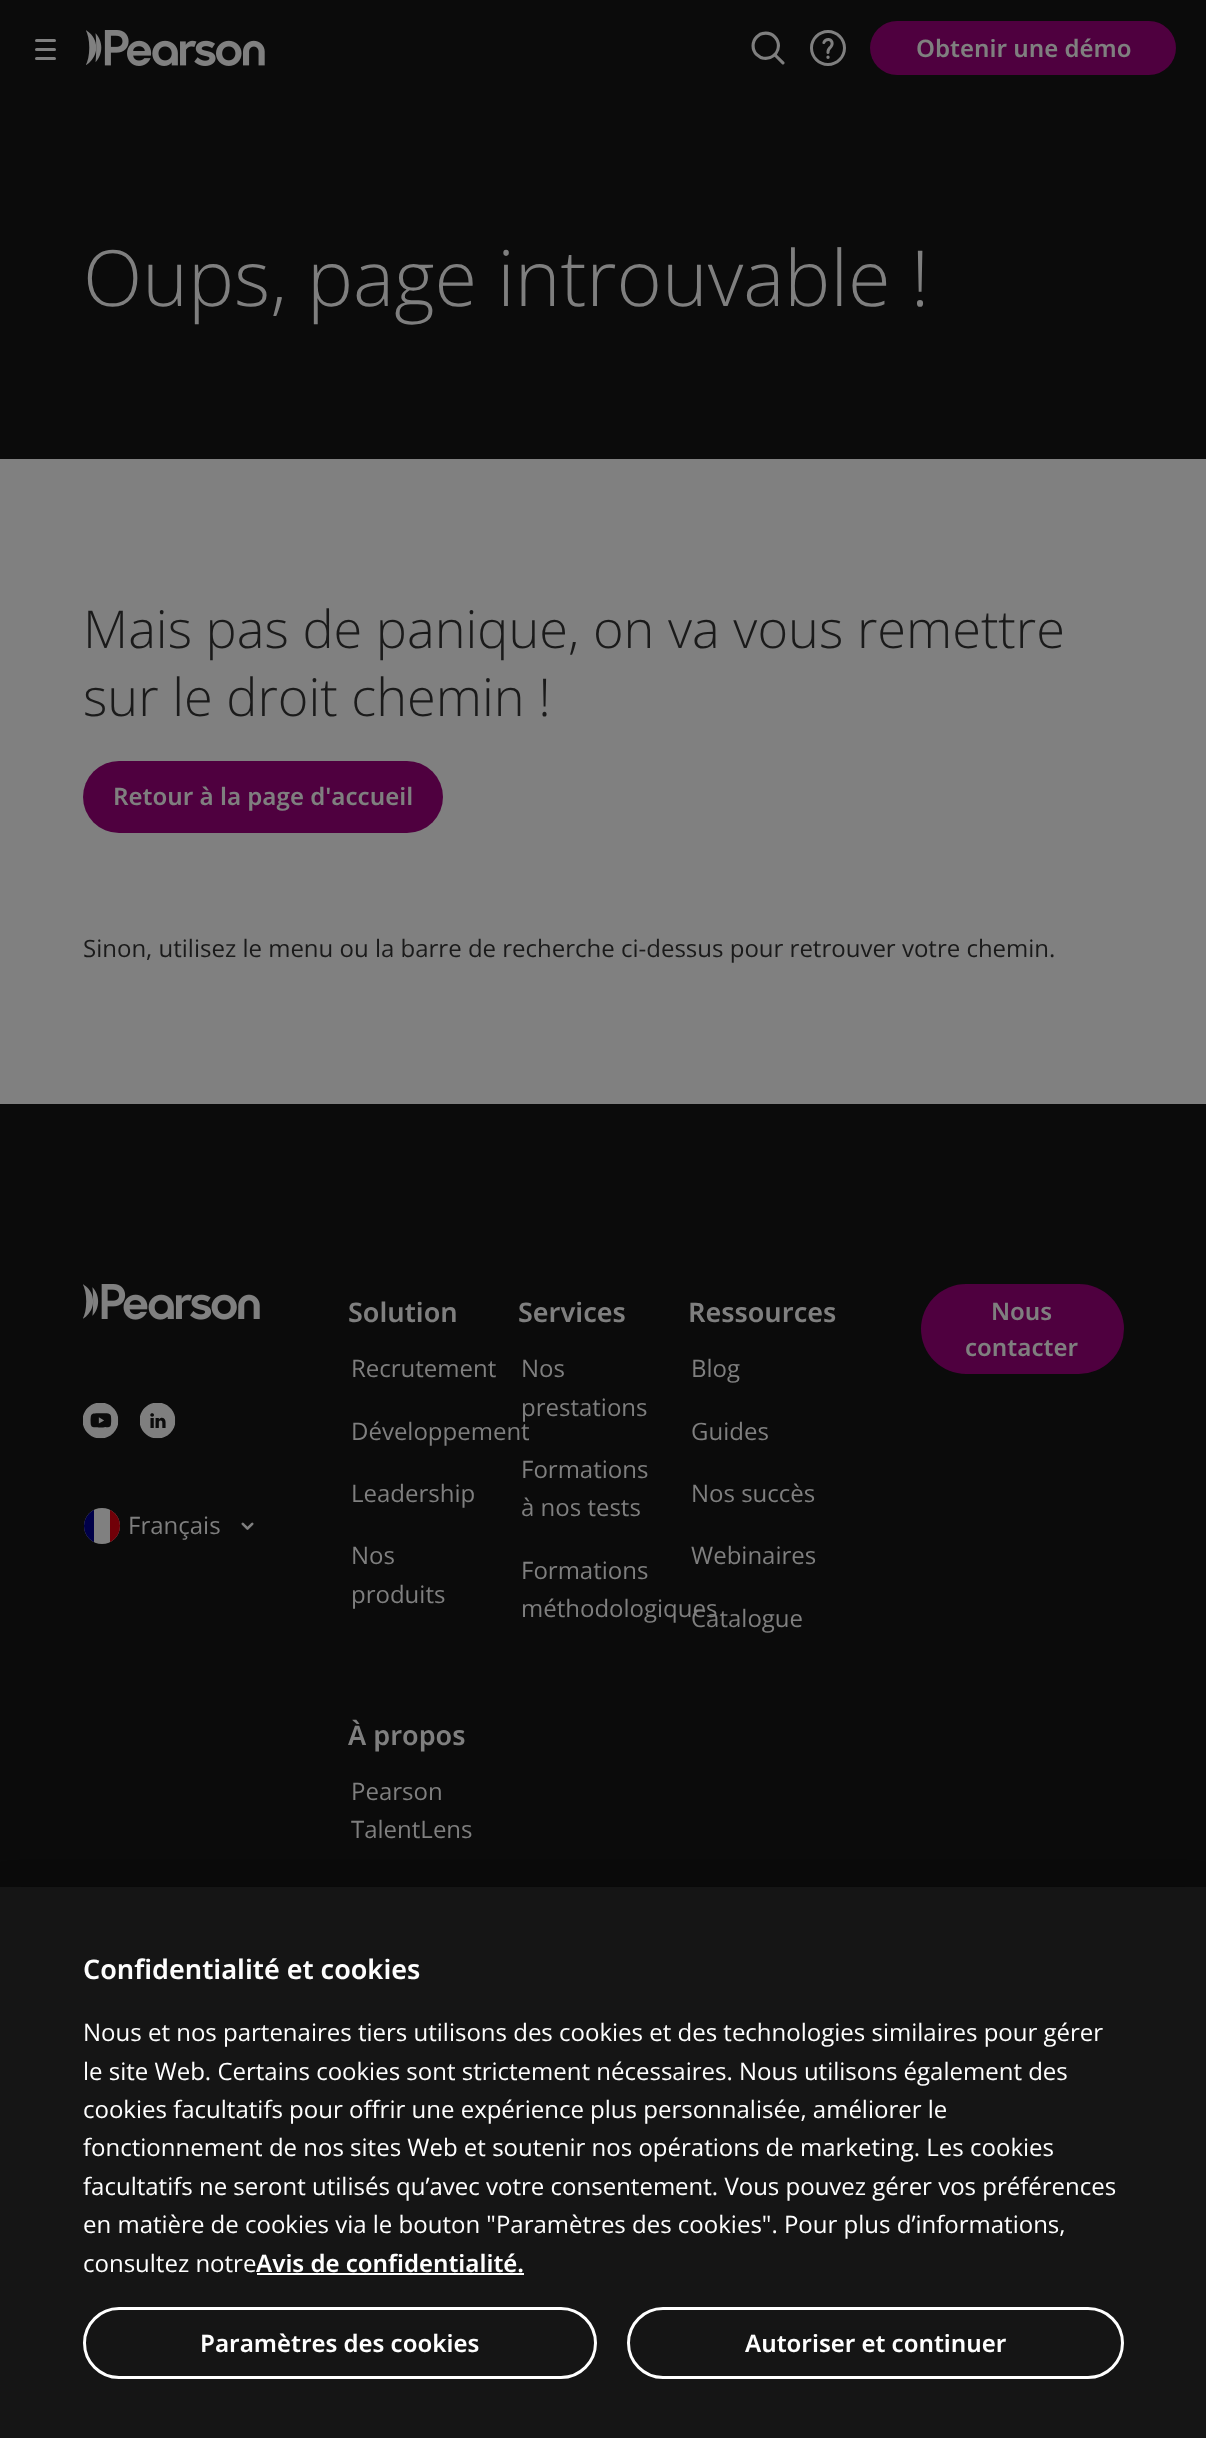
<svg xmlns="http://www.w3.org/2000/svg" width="1206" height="2438">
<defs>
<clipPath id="clip1"><rect x="84" y="1508" width="36" height="36" rx="18"/></clipPath>
</defs>
<rect width="100%" height="100%" fill="#808080"/>
<rect width="1206" height="459" fill="#0b0b0b"/>
<rect x="35" y="48" width="21" height="3" rx="1.5" fill="#808080"/>
<rect x="35" y="39" width="21" height="3" rx="1.5" fill="#808080"/>
<rect x="35" y="57" width="21" height="3" rx="1.5" fill="#808080"/>
<image x="86" y="30" width="179" height="36" href="media/1.png"/>
<image x="751" y="31" width="34" height="34" href="media/2.png"/>
<image x="810" y="30" width="36" height="36" href="media/3.png"/>
<rect x="870" y="21" width="306" height="54" rx="27" fill="#4f003f"/>
<text x="916" y="57" style="font-family:Open Sans;font-size:24px;font-weight:600;fill:#7f7f7f">Obtenir une démo</text>
<text x="83" y="306" style="font-family:Open Sans;font-size:77.5px;font-weight:300;fill:#7f7f7f">Oups, page introuvable !</text>
<text x="83" y="648" style="font-family:Open Sans;font-size:52.3px;font-weight:300;fill:#1a1a1a">Mais pas de panique, on va vous remettre</text>
<text x="83" y="716" style="font-family:Open Sans;font-size:52.3px;font-weight:300;fill:#1a1a1a">sur le droit chemin !</text>
<rect x="83" y="761" width="360" height="72" rx="36" fill="#4f003f"/>
<text x="113" y="805" style="font-family:Open Sans;font-size:24px;font-weight:600;fill:#7f7f7f">Retour à la page d'accueil</text>
<text x="83" y="957" style="font-family:Open Sans;font-size:24px;fill:#1a1a1a">Sinon, utilisez le menu ou la barre de recherche ci-dessus pour retrouver votre chemin.</text>
<rect y="1104" width="1206" height="783" fill="#0b0b0b"/>
<text x="348" y="1322" style="font-family:Open Sans;font-size:27px;font-weight:600;fill:#7f7f7f">Solution</text>
<text x="351" y="1377" style="font-family:Open Sans;font-size:24px;fill:#7f7f7f">Recrutement</text>
<text x="351" y="1440" style="font-family:Open Sans;font-size:24px;fill:#7f7f7f">Développement</text>
<text x="351" y="1502" style="font-family:Open Sans;font-size:24px;fill:#7f7f7f">Leadership</text>
<text x="351" y="1564" style="font-family:Open Sans;font-size:24px;fill:#7f7f7f">Nos</text>
<text x="351" y="1603" style="font-family:Open Sans;font-size:24px;fill:#7f7f7f">produits</text>
<text x="518" y="1322" style="font-family:Open Sans;font-size:27px;font-weight:600;fill:#7f7f7f">Services</text>
<text x="521" y="1377" style="font-family:Open Sans;font-size:24px;fill:#7f7f7f">Nos</text>
<text x="521" y="1416" style="font-family:Open Sans;font-size:24px;fill:#7f7f7f">prestations</text>
<text x="521" y="1478" style="font-family:Open Sans;font-size:24px;fill:#7f7f7f">Formations</text>
<text x="521" y="1516" style="font-family:Open Sans;font-size:24px;fill:#7f7f7f">à nos tests</text>
<text x="521" y="1579" style="font-family:Open Sans;font-size:24px;fill:#7f7f7f">Formations</text>
<text x="521" y="1617" style="font-family:Open Sans;font-size:24px;fill:#7f7f7f">méthodologiques</text>
<text x="688" y="1322" style="font-family:Open Sans;font-size:27px;font-weight:600;fill:#7f7f7f">Ressources</text>
<text x="691" y="1377" style="font-family:Open Sans;font-size:24px;fill:#7f7f7f">Blog</text>
<text x="691" y="1440" style="font-family:Open Sans;font-size:24px;fill:#7f7f7f">Guides</text>
<text x="691" y="1502" style="font-family:Open Sans;font-size:24px;fill:#7f7f7f">Nos succès</text>
<text x="691" y="1564" style="font-family:Open Sans;font-size:24px;fill:#7f7f7f">Webinaires</text>
<text x="691" y="1627" style="font-family:Open Sans;font-size:24px;fill:#7f7f7f">Catalogue</text>
<text x="348" y="1745" style="font-family:Open Sans;font-size:27px;font-weight:600;fill:#7f7f7f">À propos</text>
<text x="351" y="1800" style="font-family:Open Sans;font-size:24px;fill:#7f7f7f">Pearson</text>
<text x="351" y="1838" style="font-family:Open Sans;font-size:24px;fill:#7f7f7f">TalentLens</text>
<rect x="921" y="1284" width="203" height="90" rx="45" fill="#4f003f"/>
<text x="991" y="1320" style="font-family:Open Sans;font-size:24px;font-weight:600;fill:#7f7f7f">Nous</text>
<text x="965" y="1356" style="font-family:Open Sans;font-size:24px;font-weight:600;fill:#7f7f7f">contacter</text>
<image x="83" y="1284" width="177" height="36" href="media/4.png"/>
<image x="83" y="1403" width="36" height="36" href="media/5.png"/>
<image x="140" y="1403" width="36" height="36" href="media/6.png"/>
<circle cx="102" cy="1526" r="18" fill="#808080"/>
<g clip-path="url(#clip1)">
<rect x="84" y="1510" width="10" height="32" fill="#000049"/>
<rect x="110" y="1510" width="10" height="32" fill="#710008"/>
</g>
<text x="128" y="1534" style="font-family:Open Sans;font-size:24px;fill:#7f7f7f">Français</text>
<image x="241" y="1522" width="13" height="8" href="media/7.png"/>
<rect y="1887" width="1206" height="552" fill="#00000033" filter="blur(13.5px)"/>
<rect y="1887" width="1206" height="551" fill="#151515"/>
<text x="83" y="1979" style="font-family:Open Sans;font-size:27px;font-weight:600;fill:#fefefe">Confidentialité et cookies</text>
<text x="83" y="2041" style="font-family:Open Sans;font-size:24px;fill:#fefefe">Nous et nos partenaires tiers utilisons des cookies et des technologies similaires pour gérer</text>
<text x="83" y="2080" style="font-family:Open Sans;font-size:24px;fill:#fefefe">le site Web. Certains cookies sont strictement nécessaires. Nous utilisons également des</text>
<text x="83" y="2118" style="font-family:Open Sans;font-size:24px;fill:#fefefe">cookies facultatifs pour offrir une expérience plus personnalisée, améliorer le</text>
<text x="83" y="2156" style="font-family:Open Sans;font-size:24px;fill:#fefefe">fonctionnement de nos sites Web et soutenir nos opérations de marketing. Les cookies</text>
<text x="83" y="2195" style="font-family:Open Sans;font-size:24px;fill:#fefefe">facultatifs ne seront utilisés qu’avec votre consentement. Vous pouvez gérer vos préférences</text>
<text x="83" y="2233" style="font-family:Open Sans;font-size:24px;fill:#fefefe">en matière de cookies via le bouton "Paramètres des cookies". Pour plus d’informations,</text>
<text x="83" y="2272" style="font-family:Open Sans;font-size:24px;fill:#fefefe">consultez notre</text>
<text x="256" y="2272" style="font-family:Open Sans;font-size:24px;font-weight:600;fill:#fefefe">Avis de confidentialité.</text>
<rect x="257" y="2273" width="267" height="2" fill="#fefefe"/>
<rect x="84.5" y="2308.5" width="511" height="69" rx="34.5" fill="none" stroke="#fff" stroke-width="3"/>
<text x="200" y="2352" style="font-family:Open Sans;font-size:24px;font-weight:600;fill:#fefefe">Paramètres des cookies</text>
<rect x="628.5" y="2308.5" width="494" height="69" rx="34.5" fill="none" stroke="#fff" stroke-width="3"/>
<text x="745" y="2352" style="font-family:Open Sans;font-size:24px;font-weight:600;fill:#fefefe">Autoriser et continuer</text>
</svg>
